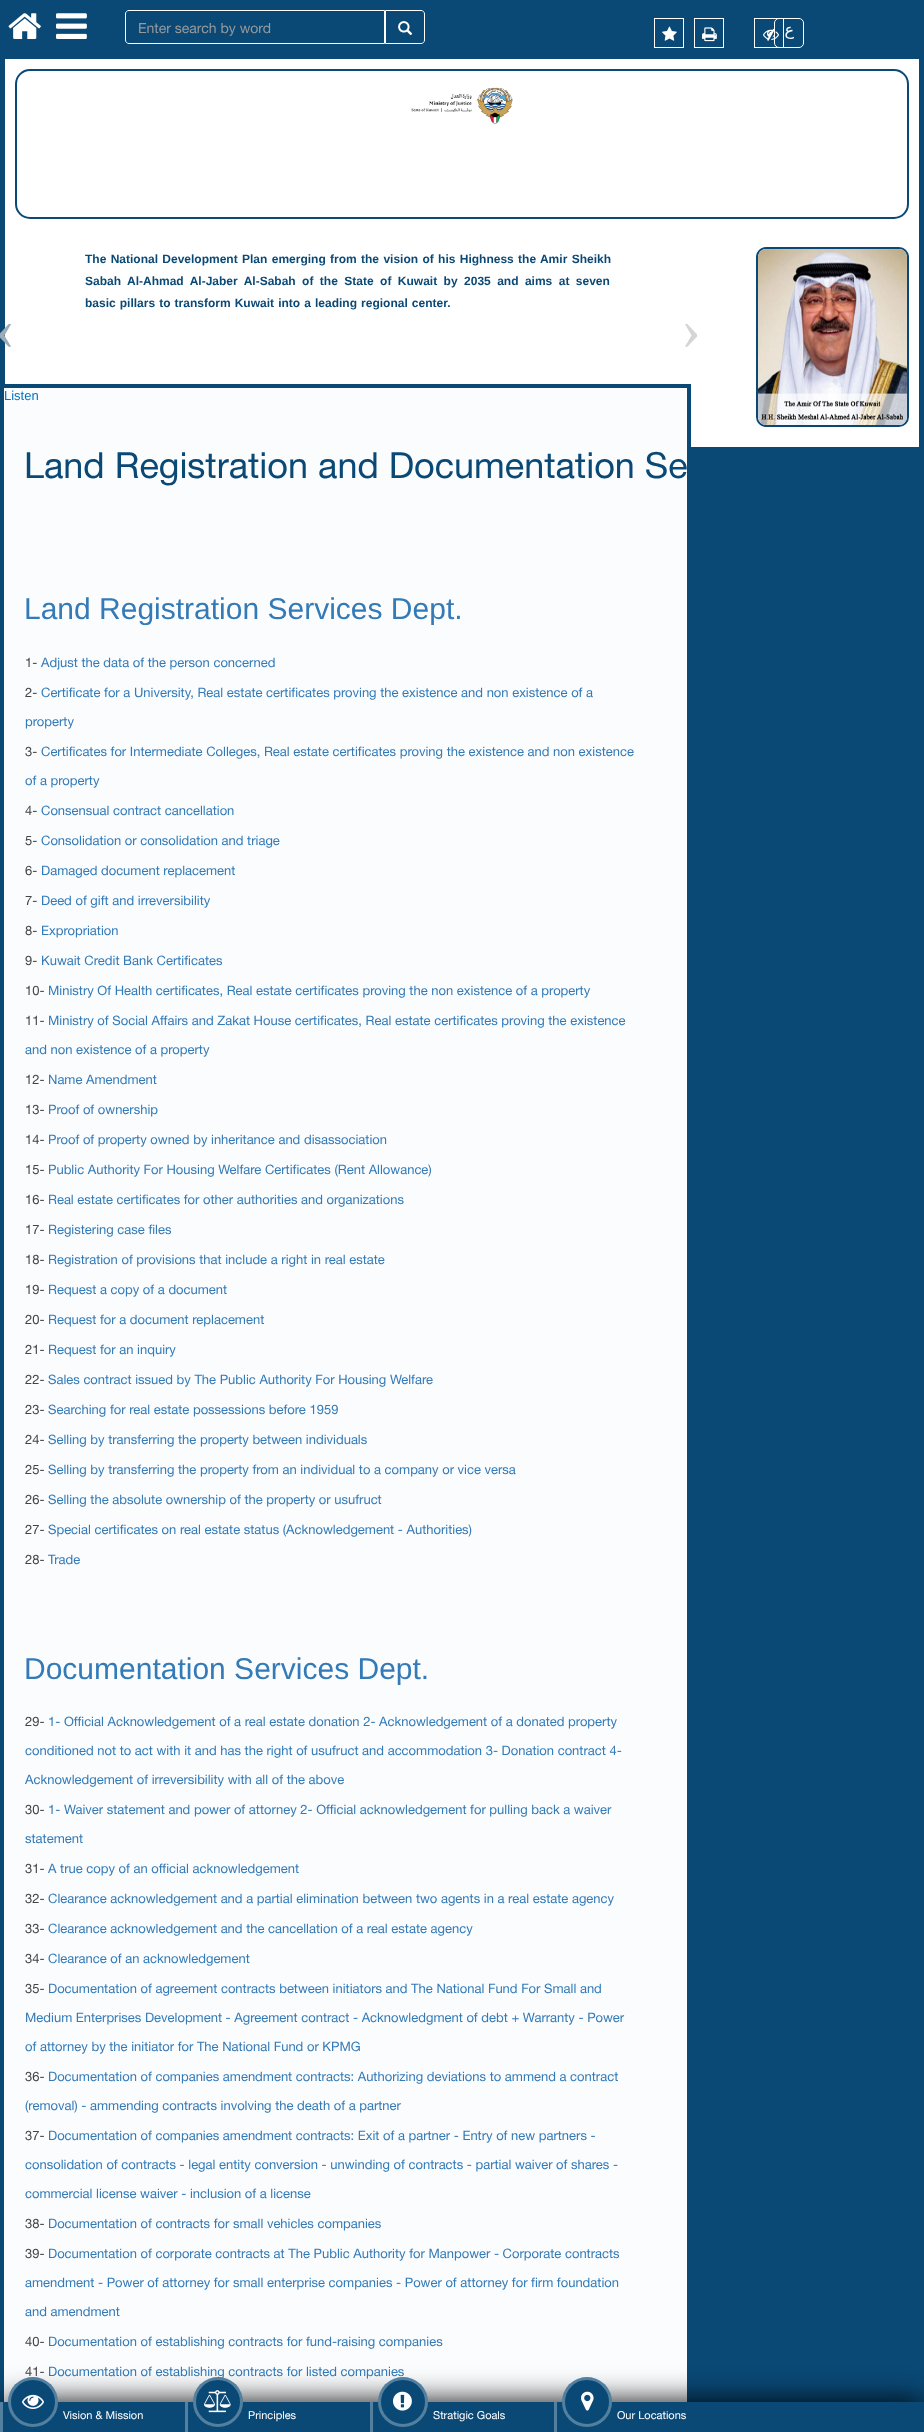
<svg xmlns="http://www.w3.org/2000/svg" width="924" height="2432">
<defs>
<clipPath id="clip1"><rect x="24" y="592" width="626" height="33"/></clipPath>
<clipPath id="clip2"><rect x="24" y="1652" width="626" height="33"/></clipPath>
</defs>
<rect width="100%" height="100%" fill="#0a4976"/>
<image x="8" y="13" width="33" height="26" href="media/1.png"/>
<image x="56" y="13" width="31" height="26" href="media/2.png"/>
<path d="M129 12h255v-1h-255c-2 0-3 1-3 3v1c0-2 1-3 3-3z" fill="#09446d"/>
<path d="M129 10.5h255.5v33h-255.5c-2 0-3.5-1.5-3.5-3.5v-26c0-2 1.5-3.5 3.5-3.5z" fill="none" stroke="#fff"/>
<text x="138" y="33" style="font-family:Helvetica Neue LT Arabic;font-size:14px;fill:#999">Enter search by word</text>
<path d="M385.5 10.5h35.5c2 0 3.5 1.5 3.5 3.5v26c0 2-1.5 3.5-3.5 3.5h-35.5z" fill="none" stroke="#fff"/>
<image x="398" y="21" width="15" height="14" href="media/3.png"/>
<rect x="654.5" y="18.5" width="29" height="29" fill="none" stroke="#fff"/>
<image x="662" y="26" width="15" height="15" href="media/4.png"/>
<rect x="694.5" y="18.5" width="29" height="29" fill="none" stroke="#fff"/>
<image x="702" y="27" width="15" height="15" href="media/5.png"/>
<rect x="754.5" y="18.5" width="29" height="29" fill="none" stroke="#fff"/>
<image x="763" y="28" width="16" height="13" href="media/6.png"/>
<rect x="774.5" y="18.5" width="29" height="29" rx="4.5" fill="none" stroke="#fff"/>
<text x="794" y="35" style="font-family:DejaVu Sans;font-size:16px;direction:rtl;fill:#fff">ع</text>
<rect x="5" y="59" width="914" height="388" fill="#fff"/>
<rect x="16" y="70" width="892" height="148" rx="14" fill="none" stroke="#0a4976" stroke-width="2"/>
<image x="411" y="87" width="102" height="38" href="media/7.png"/>
<text x="85" y="263" word-spacing="1" style="font-family:Liberation Sans;font-size:12px;font-weight:bold;fill:#0a4976">The National Development Plan emerging from the vision of his Highness the Amir Sheikh</text>
<text x="85" y="285" word-spacing="3.1" style="font-family:Liberation Sans;font-size:12px;font-weight:bold;fill:#0a4976">Sabah Al-Ahmad Al-Jaber Al-Sabah of the State of Kuwait by 2035 and aims at seven</text>
<text x="85" y="307" word-spacing="0.75" style="font-family:Liberation Sans;font-size:12px;font-weight:bold;fill:#0a4976">basic pillars to transform Kuwait into a leading regional center.</text>
<text x="-5" y="349" style="font-family:Liberation Serif;font-size:60px;fill:#9eacb6">‹</text>
<text x="681" y="349" style="font-family:Liberation Serif;font-size:60px;fill:#d5d5d5">›</text>
<rect x="757" y="248" width="151" height="178" rx="9" fill="none" stroke="#0a4976" stroke-width="2"/>
<image x="758" y="249" width="149" height="176" href="media/8.png"/>
<rect x="4" y="388" width="683" height="2014" fill="#fafcfe"/>
<rect x="2" y="386" width="687" height="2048" fill="none" stroke="#0a4976" stroke-width="4"/>
<text x="4" y="400" style="font-family:Liberation Sans;font-size:13px;fill:#0072c6">Listen</text>
<text x="24" y="478" style="font-family:Helvetica Neue LT Arabic;font-size:36px;fill:#0a4976">Land Registration and Documentation Se</text>
<g clip-path="url(#clip1)">
<text x="24" y="619" style="font-family:Liberation Sans;font-size:30px;fill:#337ab7">Land Registration Services Dept.</text>
</g>
<text x="25" y="667" style="font-family:Helvetica Neue LT Arabic;font-size:13px;fill:#444">1-</text>
<text x="41" y="667" style="font-family:Helvetica Neue LT Arabic;font-size:13px;fill:#337ab7">Adjust the data of the person concerned</text>
<text x="25" y="697" style="font-family:Helvetica Neue LT Arabic;font-size:13px;fill:#444">2-</text>
<text x="41" y="697" style="font-family:Helvetica Neue LT Arabic;font-size:13px;fill:#337ab7">Certificate for a University, Real estate certificates proving the existence and non existence of a</text>
<text x="25" y="726" style="font-family:Helvetica Neue LT Arabic;font-size:13px;fill:#337ab7">property</text>
<text x="25" y="756" style="font-family:Helvetica Neue LT Arabic;font-size:13px;fill:#444">3-</text>
<text x="41" y="756" style="font-family:Helvetica Neue LT Arabic;font-size:13px;fill:#337ab7">Certificates for Intermediate Colleges, Real estate certificates proving the existence and non existence</text>
<text x="25" y="785" style="font-family:Helvetica Neue LT Arabic;font-size:13px;fill:#337ab7">of a property</text>
<text x="25" y="815" style="font-family:Helvetica Neue LT Arabic;font-size:13px;fill:#444">4-</text>
<text x="41" y="815" style="font-family:Helvetica Neue LT Arabic;font-size:13px;fill:#337ab7">Consensual contract cancellation</text>
<text x="25" y="845" style="font-family:Helvetica Neue LT Arabic;font-size:13px;fill:#444">5-</text>
<text x="41" y="845" style="font-family:Helvetica Neue LT Arabic;font-size:13px;fill:#337ab7">Consolidation or consolidation and triage</text>
<text x="25" y="875" style="font-family:Helvetica Neue LT Arabic;font-size:13px;fill:#444">6-</text>
<text x="41" y="875" style="font-family:Helvetica Neue LT Arabic;font-size:13px;fill:#337ab7">Damaged document replacement</text>
<text x="25" y="905" style="font-family:Helvetica Neue LT Arabic;font-size:13px;fill:#444">7-</text>
<text x="41" y="905" style="font-family:Helvetica Neue LT Arabic;font-size:13px;fill:#337ab7">Deed of gift and irreversibility</text>
<text x="25" y="935" style="font-family:Helvetica Neue LT Arabic;font-size:13px;fill:#444">8-</text>
<text x="41" y="935" style="font-family:Helvetica Neue LT Arabic;font-size:13px;fill:#337ab7">Expropriation</text>
<text x="25" y="965" style="font-family:Helvetica Neue LT Arabic;font-size:13px;fill:#444">9-</text>
<text x="41" y="965" style="font-family:Helvetica Neue LT Arabic;font-size:13px;fill:#337ab7">Kuwait Credit Bank Certificates</text>
<text x="25" y="995" style="font-family:Helvetica Neue LT Arabic;font-size:13px;fill:#444">10-</text>
<text x="48" y="995" style="font-family:Helvetica Neue LT Arabic;font-size:13px;fill:#337ab7">Ministry Of Health certificates, Real estate certificates proving the non existence of a property</text>
<text x="25" y="1025" style="font-family:Helvetica Neue LT Arabic;font-size:13px;fill:#444">11-</text>
<text x="48" y="1025" style="font-family:Helvetica Neue LT Arabic;font-size:13px;fill:#337ab7">Ministry of Social Affairs and Zakat House certificates, Real estate certificates proving the existence</text>
<text x="25" y="1054" style="font-family:Helvetica Neue LT Arabic;font-size:13px;fill:#337ab7">and non existence of a property</text>
<text x="25" y="1084" style="font-family:Helvetica Neue LT Arabic;font-size:13px;fill:#444">12-</text>
<text x="48" y="1084" style="font-family:Helvetica Neue LT Arabic;font-size:13px;fill:#337ab7">Name Amendment</text>
<text x="25" y="1114" style="font-family:Helvetica Neue LT Arabic;font-size:13px;fill:#444">13-</text>
<text x="48" y="1114" style="font-family:Helvetica Neue LT Arabic;font-size:13px;fill:#337ab7">Proof of ownership</text>
<text x="25" y="1144" style="font-family:Helvetica Neue LT Arabic;font-size:13px;fill:#444">14-</text>
<text x="48" y="1144" style="font-family:Helvetica Neue LT Arabic;font-size:13px;fill:#337ab7">Proof of property owned by inheritance and disassociation</text>
<text x="25" y="1174" style="font-family:Helvetica Neue LT Arabic;font-size:13px;fill:#444">15-</text>
<text x="48" y="1174" style="font-family:Helvetica Neue LT Arabic;font-size:13px;fill:#337ab7">Public Authority For Housing Welfare Certificates (Rent Allowance)</text>
<text x="25" y="1204" style="font-family:Helvetica Neue LT Arabic;font-size:13px;fill:#444">16-</text>
<text x="48" y="1204" style="font-family:Helvetica Neue LT Arabic;font-size:13px;fill:#337ab7">Real estate certificates for other authorities and organizations</text>
<text x="25" y="1234" style="font-family:Helvetica Neue LT Arabic;font-size:13px;fill:#444">17-</text>
<text x="48" y="1234" style="font-family:Helvetica Neue LT Arabic;font-size:13px;fill:#337ab7">Registering case files</text>
<text x="25" y="1264" style="font-family:Helvetica Neue LT Arabic;font-size:13px;fill:#444">18-</text>
<text x="48" y="1264" style="font-family:Helvetica Neue LT Arabic;font-size:13px;fill:#337ab7">Registration of provisions that include a right in real estate</text>
<text x="25" y="1294" style="font-family:Helvetica Neue LT Arabic;font-size:13px;fill:#444">19-</text>
<text x="48" y="1294" style="font-family:Helvetica Neue LT Arabic;font-size:13px;fill:#337ab7">Request a copy of a document</text>
<text x="25" y="1324" style="font-family:Helvetica Neue LT Arabic;font-size:13px;fill:#444">20-</text>
<text x="48" y="1324" style="font-family:Helvetica Neue LT Arabic;font-size:13px;fill:#337ab7">Request for a document replacement</text>
<text x="25" y="1354" style="font-family:Helvetica Neue LT Arabic;font-size:13px;fill:#444">21-</text>
<text x="48" y="1354" style="font-family:Helvetica Neue LT Arabic;font-size:13px;fill:#337ab7">Request for an inquiry</text>
<text x="25" y="1384" style="font-family:Helvetica Neue LT Arabic;font-size:13px;fill:#444">22-</text>
<text x="48" y="1384" style="font-family:Helvetica Neue LT Arabic;font-size:13px;fill:#337ab7">Sales contract issued by The Public Authority For Housing Welfare</text>
<text x="25" y="1414" style="font-family:Helvetica Neue LT Arabic;font-size:13px;fill:#444">23-</text>
<text x="48" y="1414" style="font-family:Helvetica Neue LT Arabic;font-size:13px;fill:#337ab7">Searching for real estate possessions before 1959</text>
<text x="25" y="1444" style="font-family:Helvetica Neue LT Arabic;font-size:13px;fill:#444">24-</text>
<text x="48" y="1444" style="font-family:Helvetica Neue LT Arabic;font-size:13px;fill:#337ab7">Selling by transferring the property between individuals</text>
<text x="25" y="1474" style="font-family:Helvetica Neue LT Arabic;font-size:13px;fill:#444">25-</text>
<text x="48" y="1474" style="font-family:Helvetica Neue LT Arabic;font-size:13px;fill:#337ab7">Selling by transferring the property from an individual to a company or vice versa</text>
<text x="25" y="1504" style="font-family:Helvetica Neue LT Arabic;font-size:13px;fill:#444">26-</text>
<text x="48" y="1504" style="font-family:Helvetica Neue LT Arabic;font-size:13px;fill:#337ab7">Selling the absolute ownership of the property or usufruct</text>
<text x="25" y="1534" style="font-family:Helvetica Neue LT Arabic;font-size:13px;fill:#444">27-</text>
<text x="48" y="1534" style="font-family:Helvetica Neue LT Arabic;font-size:13px;fill:#337ab7">Special certificates on real estate status (Acknowledgement - Authorities)</text>
<text x="25" y="1564" style="font-family:Helvetica Neue LT Arabic;font-size:13px;fill:#444">28-</text>
<text x="48" y="1564" style="font-family:Helvetica Neue LT Arabic;font-size:13px;fill:#337ab7">Trade</text>
<g clip-path="url(#clip2)">
<text x="24" y="1679" style="font-family:Liberation Sans;font-size:30px;fill:#337ab7">Documentation Services Dept.</text>
</g>
<text x="25" y="1726" style="font-family:Helvetica Neue LT Arabic;font-size:13px;fill:#444">29-</text>
<text x="48" y="1726" style="font-family:Helvetica Neue LT Arabic;font-size:13px;fill:#337ab7">1- Official Acknowledgement of a real estate donation 2- Acknowledgement of a donated property</text>
<text x="25" y="1755" style="font-family:Helvetica Neue LT Arabic;font-size:13px;fill:#337ab7">conditioned not to act with it and has the right of usufruct and accommodation 3- Donation contract 4-</text>
<text x="25" y="1784" style="font-family:Helvetica Neue LT Arabic;font-size:13px;fill:#337ab7">Acknowledgement of irreversibility with all of the above</text>
<text x="25" y="1814" style="font-family:Helvetica Neue LT Arabic;font-size:13px;fill:#444">30-</text>
<text x="48" y="1814" style="font-family:Helvetica Neue LT Arabic;font-size:13px;fill:#337ab7">1- Waiver statement and power of attorney 2- Official acknowledgement for pulling back a waiver</text>
<text x="25" y="1843" style="font-family:Helvetica Neue LT Arabic;font-size:13px;fill:#337ab7">statement</text>
<text x="25" y="1873" style="font-family:Helvetica Neue LT Arabic;font-size:13px;fill:#444">31-</text>
<text x="48" y="1873" style="font-family:Helvetica Neue LT Arabic;font-size:13px;fill:#337ab7">A true copy of an official acknowledgement</text>
<text x="25" y="1903" style="font-family:Helvetica Neue LT Arabic;font-size:13px;fill:#444">32-</text>
<text x="48" y="1903" style="font-family:Helvetica Neue LT Arabic;font-size:13px;fill:#337ab7">Clearance acknowledgement and a partial elimination between two agents in a real estate agency</text>
<text x="25" y="1933" style="font-family:Helvetica Neue LT Arabic;font-size:13px;fill:#444">33-</text>
<text x="48" y="1933" style="font-family:Helvetica Neue LT Arabic;font-size:13px;fill:#337ab7">Clearance acknowledgement and the cancellation of a real estate agency</text>
<text x="25" y="1963" style="font-family:Helvetica Neue LT Arabic;font-size:13px;fill:#444">34-</text>
<text x="48" y="1963" style="font-family:Helvetica Neue LT Arabic;font-size:13px;fill:#337ab7">Clearance of an acknowledgement</text>
<text x="25" y="1993" style="font-family:Helvetica Neue LT Arabic;font-size:13px;fill:#444">35-</text>
<text x="48" y="1993" style="font-family:Helvetica Neue LT Arabic;font-size:13px;fill:#337ab7">Documentation of agreement contracts between initiators and The National Fund For Small and</text>
<text x="25" y="2022" style="font-family:Helvetica Neue LT Arabic;font-size:13px;fill:#337ab7">Medium Enterprises Development - Agreement contract - Acknowledgment of debt + Warranty - Power</text>
<text x="25" y="2051" style="font-family:Helvetica Neue LT Arabic;font-size:13px;fill:#337ab7">of attorney by the initiator for The National Fund or KPMG</text>
<text x="25" y="2081" style="font-family:Helvetica Neue LT Arabic;font-size:13px;fill:#444">36-</text>
<text x="48" y="2081" style="font-family:Helvetica Neue LT Arabic;font-size:13px;fill:#337ab7">Documentation of companies amendment contracts: Authorizing deviations to ammend a contract</text>
<text x="25" y="2110" style="font-family:Helvetica Neue LT Arabic;font-size:13px;fill:#337ab7">(removal) - ammending contracts involving the death of a partner</text>
<text x="25" y="2140" style="font-family:Helvetica Neue LT Arabic;font-size:13px;fill:#444">37-</text>
<text x="48" y="2140" style="font-family:Helvetica Neue LT Arabic;font-size:13px;fill:#337ab7">Documentation of companies amendment contracts: Exit of a partner - Entry of new partners -</text>
<text x="25" y="2169" style="font-family:Helvetica Neue LT Arabic;font-size:13px;fill:#337ab7">consolidation of contracts - legal entity conversion - unwinding of contracts - partial waiver of shares -</text>
<text x="25" y="2198" style="font-family:Helvetica Neue LT Arabic;font-size:13px;fill:#337ab7">commercial license waiver - inclusion of a license</text>
<text x="25" y="2228" style="font-family:Helvetica Neue LT Arabic;font-size:13px;fill:#444">38-</text>
<text x="48" y="2228" style="font-family:Helvetica Neue LT Arabic;font-size:13px;fill:#337ab7">Documentation of contracts for small vehicles companies</text>
<text x="25" y="2258" style="font-family:Helvetica Neue LT Arabic;font-size:13px;fill:#444">39-</text>
<text x="48" y="2258" style="font-family:Helvetica Neue LT Arabic;font-size:13px;fill:#337ab7">Documentation of corporate contracts at The Public Authority for Manpower - Corporate contracts</text>
<text x="25" y="2287" style="font-family:Helvetica Neue LT Arabic;font-size:13px;fill:#337ab7">amendment - Power of attorney for small enterprise companies - Power of attorney for firm foundation</text>
<text x="25" y="2316" style="font-family:Helvetica Neue LT Arabic;font-size:13px;fill:#337ab7">and amendment</text>
<text x="25" y="2346" style="font-family:Helvetica Neue LT Arabic;font-size:13px;fill:#444">40-</text>
<text x="48" y="2346" style="font-family:Helvetica Neue LT Arabic;font-size:13px;fill:#337ab7">Documentation of establishing contracts for fund-raising companies</text>
<text x="25" y="2376" style="font-family:Helvetica Neue LT Arabic;font-size:13px;fill:#444">41-</text>
<text x="48" y="2376" style="font-family:Helvetica Neue LT Arabic;font-size:13px;fill:#337ab7">Documentation of establishing contracts for listed companies</text>
<rect y="2402" width="924" height="30" fill="#000" filter="blur(15px)"/>
<rect x="3" y="2402" width="921" height="30" fill="#0a4976"/>
<rect y="2402" width="3" height="30" fill="#54809f"/>
<circle cx="33" cy="2402" r="25" fill="#0a4976"/>
<circle cx="33" cy="2402" r="23.5" fill="none" stroke="#ffffff4d" stroke-width="3"/>
<image x="22" y="2394" width="22" height="15" href="media/9.png"/>
<text x="63" y="2419" style="font-family:Helvetica Neue LT Arabic;font-size:11px;fill:#fff">Vision &amp; Mission</text>
<rect x="185" y="2402" width="3" height="30" fill="#54809f"/>
<circle cx="218" cy="2402" r="25" fill="#0a4976"/>
<circle cx="218" cy="2402" r="23.5" fill="none" stroke="#ffffff4d" stroke-width="3"/>
<image x="204" y="2390" width="27" height="23" href="media/10.png"/>
<text x="248" y="2419" style="font-family:Helvetica Neue LT Arabic;font-size:11px;fill:#fff">Principles</text>
<rect x="370" y="2402" width="3" height="30" fill="#54809f"/>
<circle cx="403" cy="2402" r="25" fill="#0a4976"/>
<circle cx="403" cy="2402" r="23.5" fill="none" stroke="#ffffff4d" stroke-width="3"/>
<image x="393" y="2391" width="19" height="20" href="media/11.png"/>
<text x="433" y="2419" style="font-family:Helvetica Neue LT Arabic;font-size:11px;fill:#fff">Stratigic Goals</text>
<rect x="554" y="2402" width="3" height="30" fill="#54809f"/>
<circle cx="587" cy="2402" r="25" fill="#0a4976"/>
<circle cx="587" cy="2402" r="23.5" fill="none" stroke="#ffffff4d" stroke-width="3"/>
<image x="581" y="2391" width="13" height="20" href="media/12.png"/>
<text x="617" y="2419" style="font-family:Helvetica Neue LT Arabic;font-size:11px;fill:#fff">Our Locations</text>
</svg>
